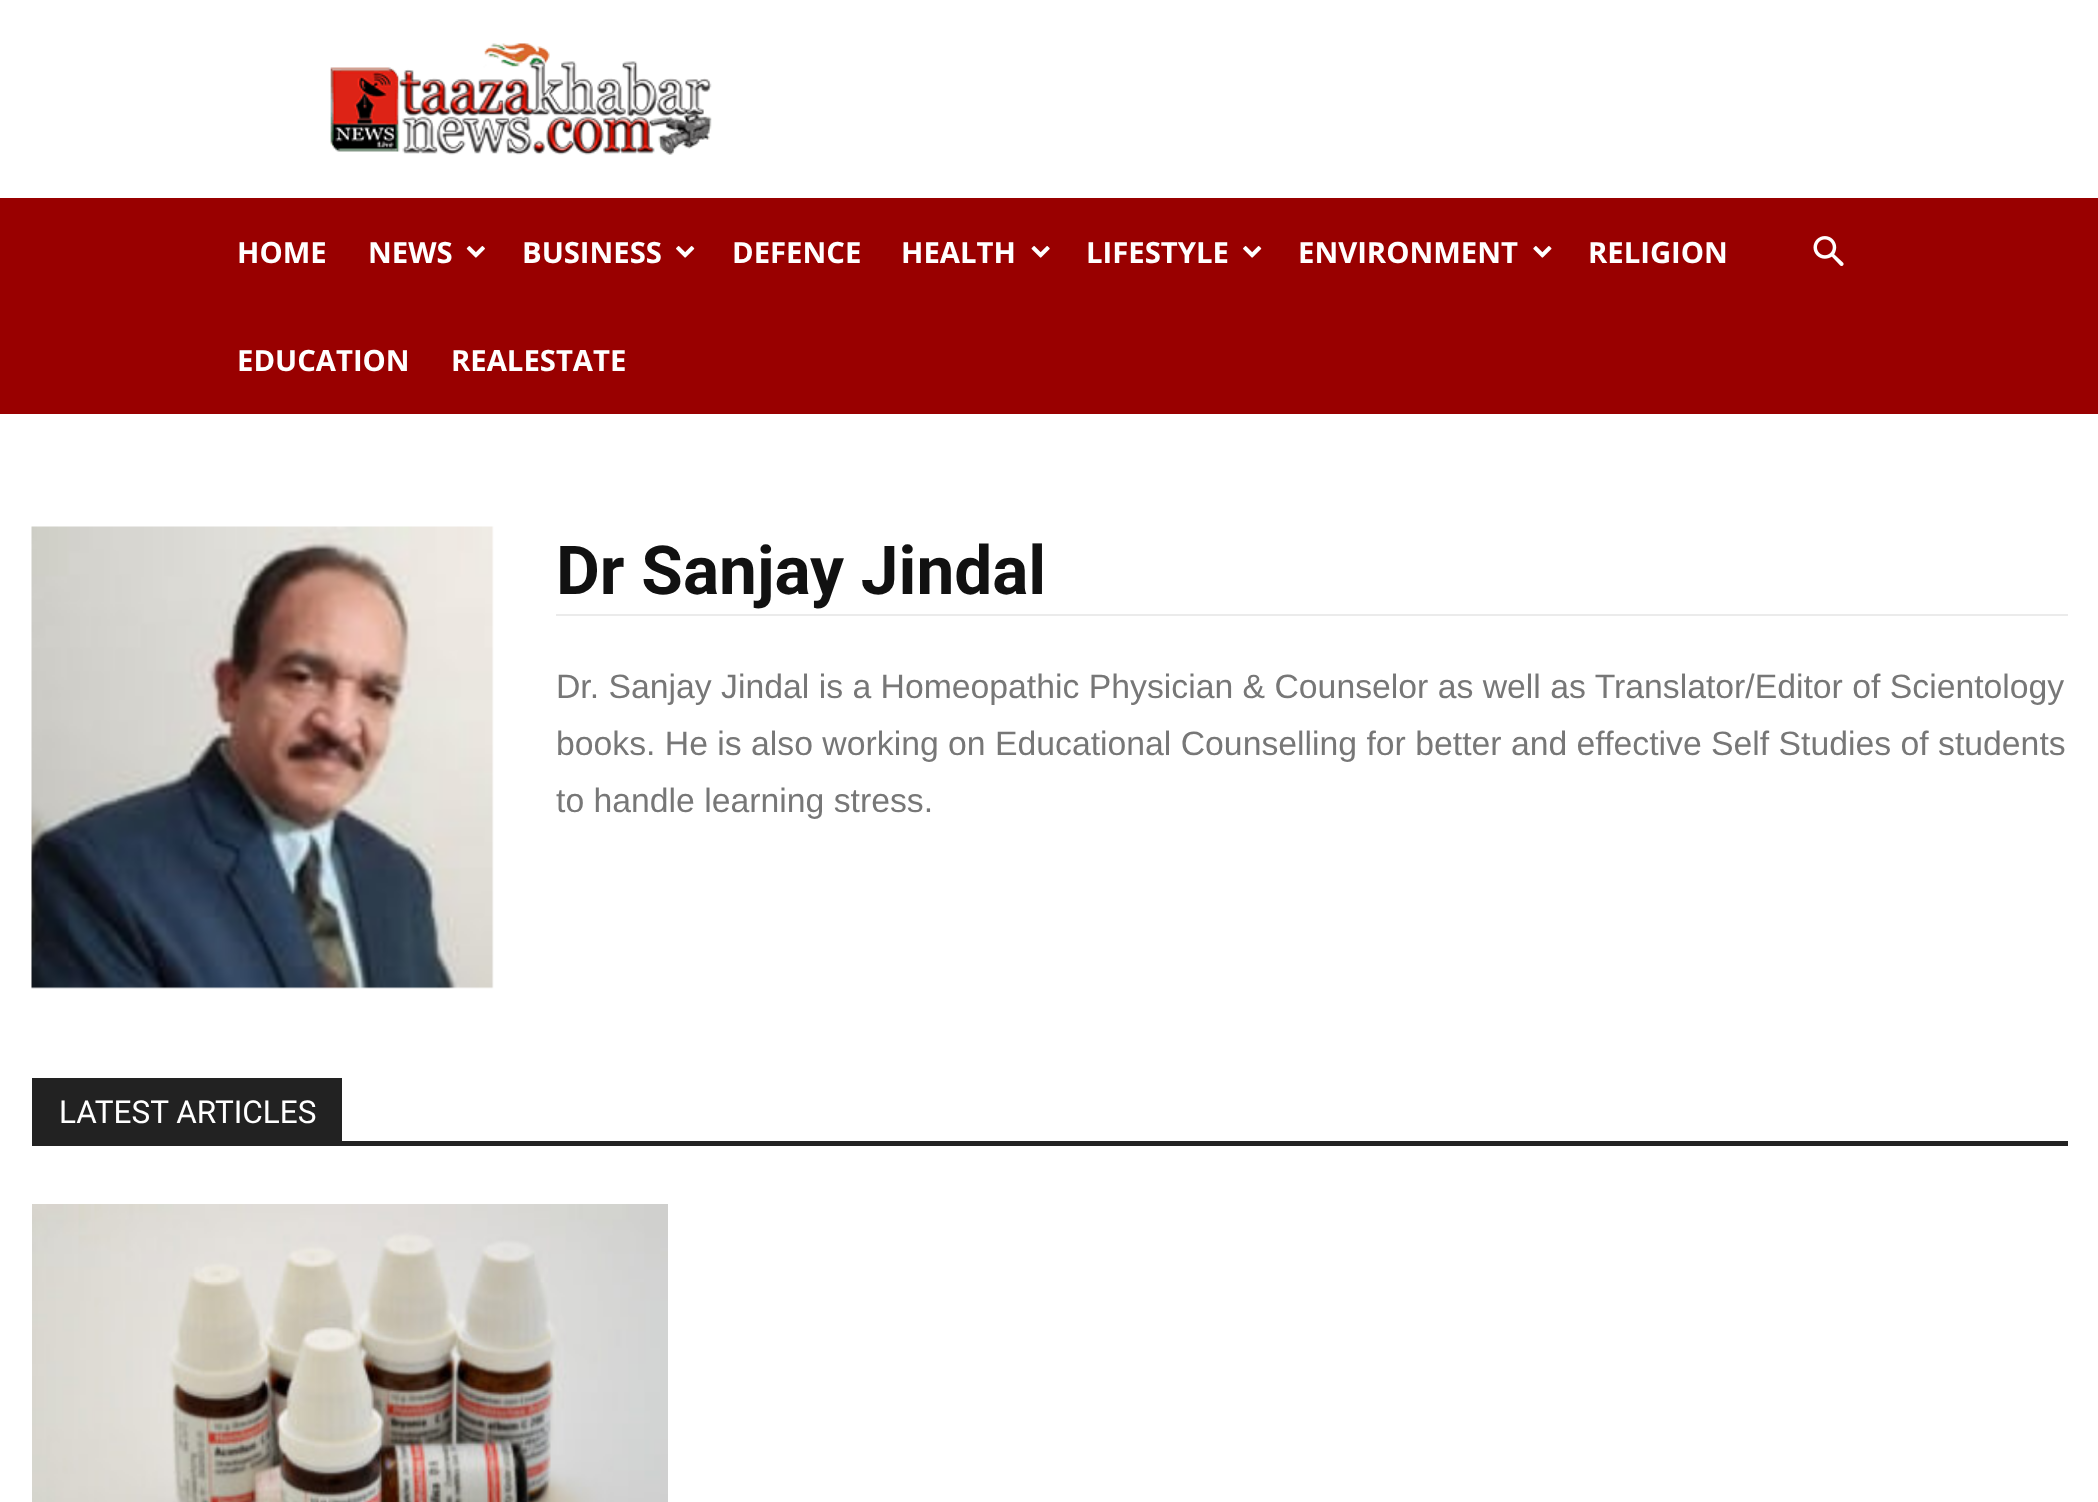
<svg xmlns="http://www.w3.org/2000/svg" width="2098" height="1502">
<rect width="100%" height="100%" fill="#fff"/>
<image x="330" y="43" width="382" height="112" href="media/1.png"/>
<rect y="198" width="2098" height="216" fill="#900"/>
<text x="237" y="263" style="font-family:Open Sans;font-size:29.25px;font-weight:bold;fill:#fff">HOME</text>
<text x="368" y="263" style="font-family:Open Sans;font-size:29.25px;font-weight:bold;fill:#fff">NEWS</text>
<image x="466" y="246" width="19" height="12" href="media/2.png"/>
<text x="522" y="263" style="font-family:Open Sans;font-size:29.25px;font-weight:bold;fill:#fff">BUSINESS</text>
<image x="676" y="246" width="19" height="12" href="media/3.png"/>
<text x="732" y="263" style="font-family:Open Sans;font-size:29.25px;font-weight:bold;fill:#fff">DEFENCE</text>
<text x="901" y="263" style="font-family:Open Sans;font-size:29.25px;font-weight:bold;fill:#fff">HEALTH</text>
<image x="1031" y="246" width="19" height="12" href="media/4.png"/>
<text x="1086" y="263" style="font-family:Open Sans;font-size:29.25px;font-weight:bold;fill:#fff">LIFESTYLE</text>
<image x="1243" y="246" width="19" height="12" href="media/3.png"/>
<text x="1298" y="263" style="font-family:Open Sans;font-size:29.25px;font-weight:bold;fill:#fff">ENVIRONMENT</text>
<image x="1533" y="246" width="19" height="12" href="media/5.png"/>
<text x="1588" y="263" style="font-family:Open Sans;font-size:29.25px;font-weight:bold;fill:#fff">RELIGION</text>
<text x="237" y="371" style="font-family:Open Sans;font-size:29.25px;font-weight:bold;fill:#fff">EDUCATION</text>
<text x="451" y="371" style="font-family:Open Sans;font-size:29.25px;font-weight:bold;fill:#fff">REALESTATE</text>
<image x="1813" y="236" width="31" height="30" href="media/6.png"/>
<image x="31" y="526" width="463" height="463" href="media/7.png"/>
<text x="556" y="594" style="font-family:Roboto;font-size:67.5px;font-weight:bold;fill:#111">Dr Sanjay Jindal</text>
<rect x="556" y="614" width="1512" height="2" fill="#ebebeb"/>
<text x="556" y="698" style="font-family:Liberation Sans;font-size:33.75px;fill:#777">Dr. Sanjay Jindal is a Homeopathic Physician &amp; Counselor as well as Translator/Editor of Scientology</text>
<text x="556" y="755" style="font-family:Liberation Sans;font-size:33.75px;fill:#777">books. He is also working on Educational Counselling for better and effective Self Studies of students</text>
<text x="556" y="812" style="font-family:Liberation Sans;font-size:33.75px;fill:#777">to handle learning stress.</text>
<rect x="32" y="1141" width="2036" height="5" fill="#222"/>
<rect x="32" y="1078" width="310" height="63" fill="#222"/>
<text x="59" y="1123" style="font-family:Roboto;font-size:31.5px;fill:#fff">LATEST ARTICLES</text>
<image x="32" y="1204" width="636" height="298" href="media/8.png"/>
</svg>
